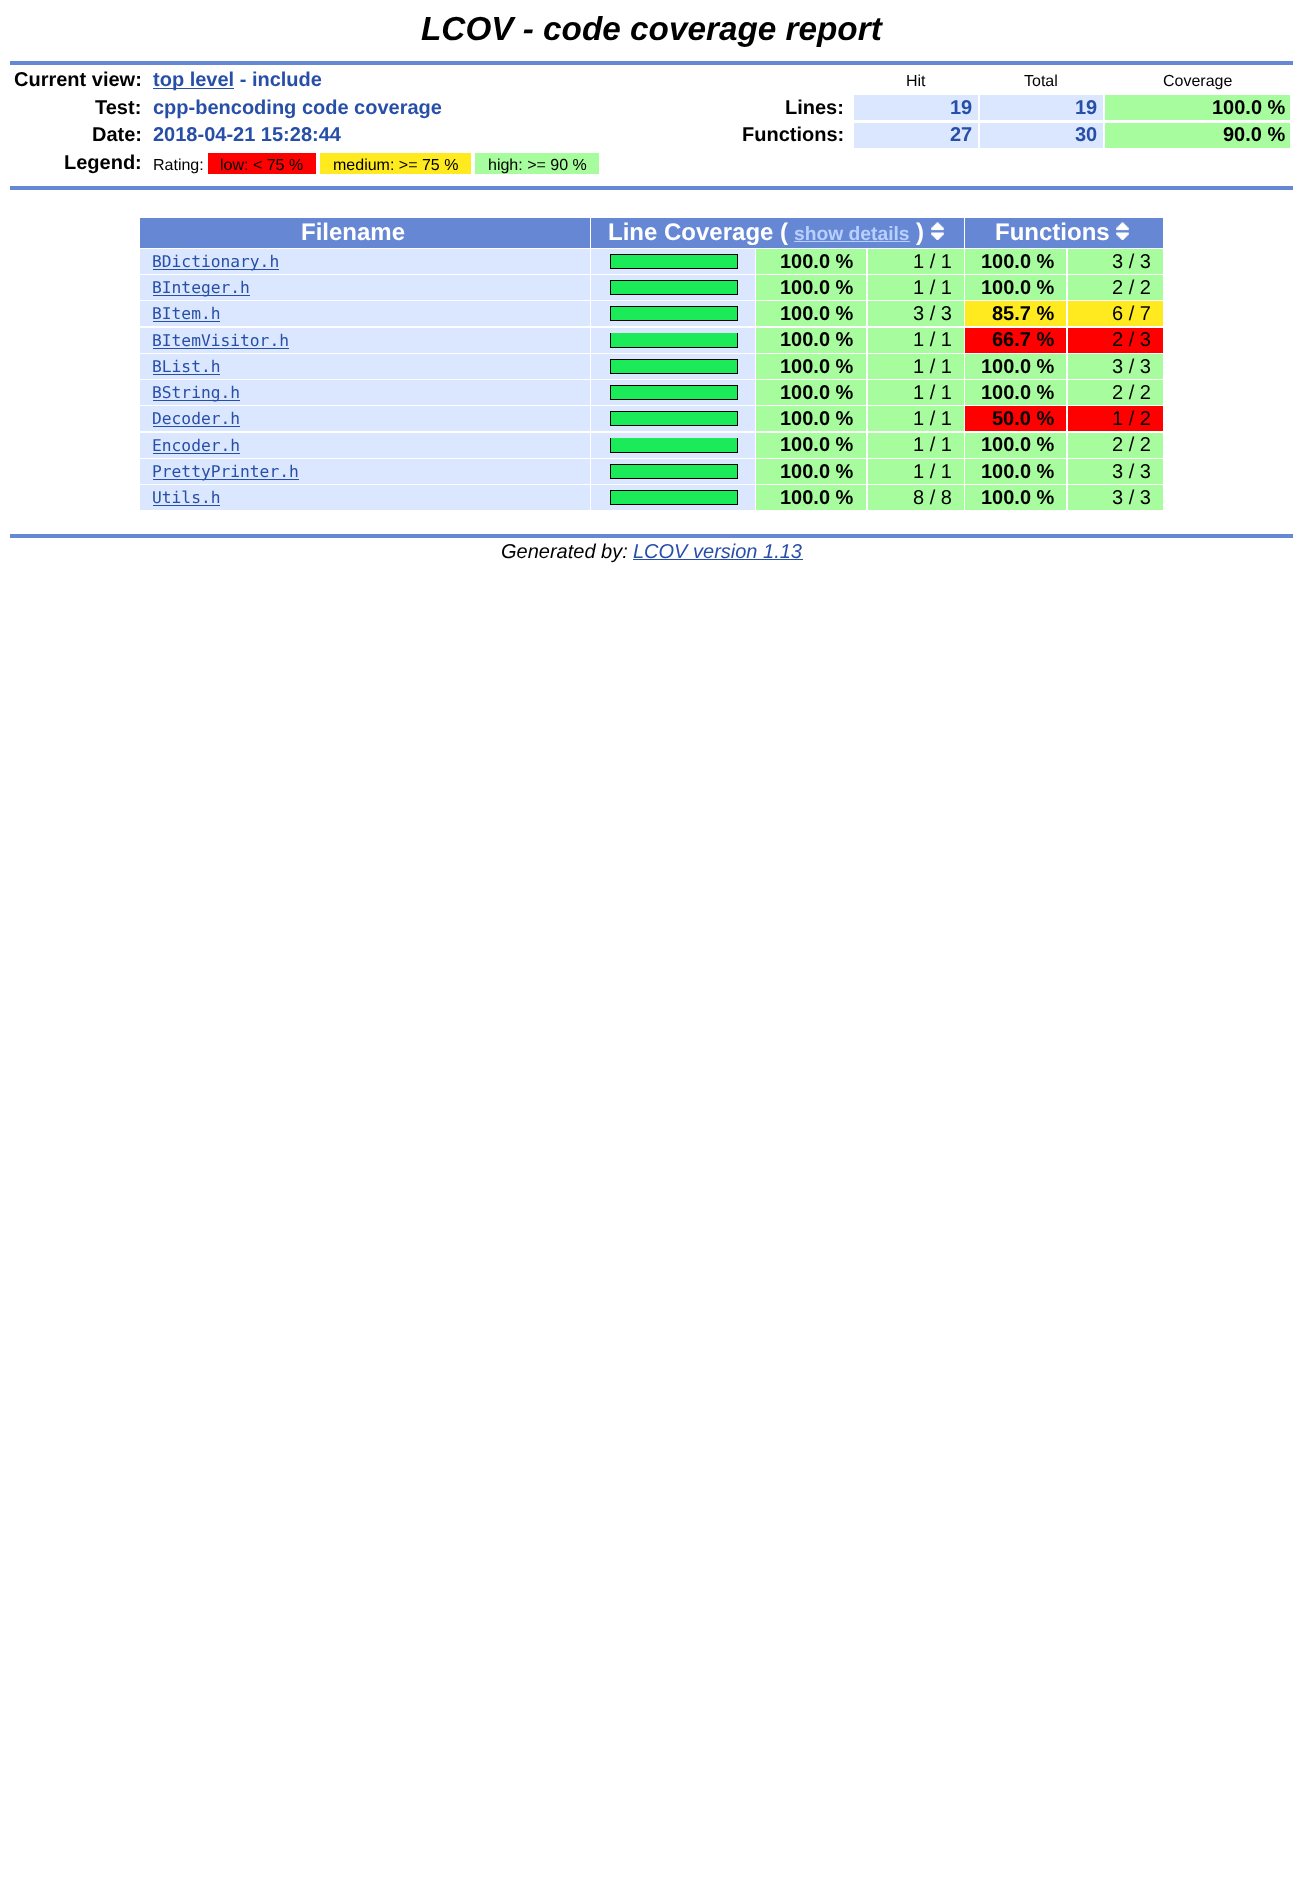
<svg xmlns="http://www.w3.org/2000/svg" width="1302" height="1902">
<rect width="100%" height="100%" fill="#fff"/>
<text x="421" y="40" style="font-family:Liberation Sans;font-size:33.3px;font-weight:bold;font-style:italic;fill:#000">LCOV - code coverage report</text>
<rect x="10" y="61" width="1283" height="4" fill="#6688d4"/>
<text x="14" y="86" style="font-family:Liberation Sans;font-size:20px;font-weight:bold;fill:#000">Current view:</text>
<rect x="153" y="88" width="81" height="1" fill="#284fa8"/>
<text x="153" y="86" style="font-family:Liberation Sans;font-size:20px;font-weight:bold;fill:#284fa8">top level - include</text>
<text x="906" y="86" style="font-family:Liberation Sans;font-size:16px;fill:#000">Hit</text>
<text x="1024" y="86" style="font-family:Liberation Sans;font-size:16px;fill:#000">Total</text>
<text x="1163" y="86" style="font-family:Liberation Sans;font-size:16px;fill:#000">Coverage</text>
<text x="95" y="114" style="font-family:Liberation Sans;font-size:20px;font-weight:bold;fill:#000">Test:</text>
<text x="153" y="114" style="font-family:Liberation Sans;font-size:20px;font-weight:bold;fill:#284fa8">cpp-bencoding code coverage</text>
<text x="785" y="114" style="font-family:Liberation Sans;font-size:20px;font-weight:bold;fill:#000">Lines:</text>
<rect x="854" y="95" width="124" height="25" fill="#dae7fe"/>
<text x="950" y="114" style="font-family:Liberation Sans;font-size:20px;font-weight:bold;fill:#284fa8">19</text>
<rect x="980" y="95" width="123" height="25" fill="#dae7fe"/>
<text x="1075" y="114" style="font-family:Liberation Sans;font-size:20px;font-weight:bold;fill:#284fa8">19</text>
<rect x="1105" y="95" width="185" height="25" fill="#a7fc9d"/>
<text x="1212" y="114" style="font-family:Liberation Sans;font-size:20px;font-weight:bold;fill:#000">100.0 %</text>
<text x="92" y="141" style="font-family:Liberation Sans;font-size:20px;font-weight:bold;fill:#000">Date:</text>
<text x="153" y="141" style="font-family:Liberation Sans;font-size:20px;font-weight:bold;fill:#284fa8">2018-04-21 15:28:44</text>
<text x="742" y="141" style="font-family:Liberation Sans;font-size:20px;font-weight:bold;fill:#000">Functions:</text>
<rect x="854" y="123" width="124" height="25" fill="#dae7fe"/>
<text x="950" y="141" style="font-family:Liberation Sans;font-size:20px;font-weight:bold;fill:#284fa8">27</text>
<rect x="980" y="123" width="123" height="25" fill="#dae7fe"/>
<text x="1075" y="141" style="font-family:Liberation Sans;font-size:20px;font-weight:bold;fill:#284fa8">30</text>
<rect x="1105" y="123" width="185" height="25" fill="#a7fc9d"/>
<text x="1223" y="141" style="font-family:Liberation Sans;font-size:20px;font-weight:bold;fill:#000">90.0 %</text>
<text x="64" y="169" style="font-family:Liberation Sans;font-size:20px;font-weight:bold;fill:#000">Legend:</text>
<text x="153" y="170" style="font-family:Liberation Sans;font-size:16px;fill:#000">Rating:</text>
<rect x="208" y="153" width="108" height="21" fill="#f00"/>
<text x="220" y="170" style="font-family:Liberation Sans;font-size:16px;fill:#000">low: &lt; 75 %</text>
<rect x="320" y="153" width="151" height="21" fill="#ffea20"/>
<text x="333" y="170" style="font-family:Liberation Sans;font-size:16px;fill:#000">medium: &gt;= 75 %</text>
<rect x="475" y="153" width="124" height="21" fill="#a7fc9d"/>
<text x="488" y="170" style="font-family:Liberation Sans;font-size:16px;fill:#000">high: &gt;= 90 %</text>
<rect x="10" y="186" width="1283" height="4" fill="#6688d4"/>
<rect x="140" y="218" width="450" height="30" fill="#6688d4"/>
<text x="301" y="240" style="font-family:Liberation Sans;font-size:24px;font-weight:bold;fill:#fff">Filename</text>
<rect x="591" y="218" width="373" height="30" fill="#6688d4"/>
<text x="608" y="240" style="font-family:Liberation Sans;font-size:24px;font-weight:bold;fill:#fff">Line Coverage (</text>
<text x="794" y="240" style="font-family:Liberation Sans;font-size:19.25px;font-weight:bold;fill:#b8d0ff">show details</text>
<rect x="794" y="241" width="116" height="1" fill="#b8d0ff"/>
<text x="916" y="240" style="font-family:Liberation Sans;font-size:24px;font-weight:bold;fill:#fff">)</text>
<image x="931" y="222" width="13" height="18" href="media/1.png"/>
<rect x="965" y="218" width="198" height="30" fill="#6688d4"/>
<text x="995" y="240" style="font-family:Liberation Sans;font-size:24px;font-weight:bold;fill:#fff">Functions</text>
<image x="1116" y="222" width="13" height="18" href="media/1.png"/>
<rect x="140" y="249" width="450" height="25" fill="#dae7fe"/>
<rect x="153" y="269" width="126" height="1" fill="#284fa8"/>
<text x="152" y="267" style="font-family:DejaVu Sans Mono;font-size:16.25px;fill:#284fa8">BDictionary.h</text>
<rect x="591" y="249" width="164" height="25" fill="#dae7fe"/>
<rect x="610" y="254" width="128" height="15" fill="#000"/>
<rect x="611" y="255" width="126" height="13" fill="#1bea59"/>
<rect x="756" y="249" width="110" height="25" fill="#a7fc9d"/>
<text x="780" y="268" style="font-family:Liberation Sans;font-size:20px;font-weight:bold;fill:#000">100.0 %</text>
<rect x="868" y="249" width="96" height="25" fill="#a7fc9d"/>
<text x="913" y="268" style="font-family:Liberation Sans;font-size:20px;fill:#000">1 / 1</text>
<rect x="965" y="249" width="101" height="25" fill="#a7fc9d"/>
<text x="981" y="268" style="font-family:Liberation Sans;font-size:20px;font-weight:bold;fill:#000">100.0 %</text>
<rect x="1068" y="249" width="95" height="25" fill="#a7fc9d"/>
<text x="1112" y="268" style="font-family:Liberation Sans;font-size:20px;fill:#000">3 / 3</text>
<rect x="140" y="275" width="450" height="25" fill="#dae7fe"/>
<rect x="153" y="295" width="97" height="1" fill="#284fa8"/>
<text x="152" y="293" style="font-family:DejaVu Sans Mono;font-size:16.25px;fill:#284fa8">BInteger.h</text>
<rect x="591" y="275" width="164" height="25" fill="#dae7fe"/>
<rect x="610" y="280" width="128" height="15" fill="#000"/>
<rect x="611" y="281" width="126" height="13" fill="#1bea59"/>
<rect x="756" y="275" width="110" height="25" fill="#a7fc9d"/>
<text x="780" y="294" style="font-family:Liberation Sans;font-size:20px;font-weight:bold;fill:#000">100.0 %</text>
<rect x="868" y="275" width="96" height="25" fill="#a7fc9d"/>
<text x="913" y="294" style="font-family:Liberation Sans;font-size:20px;fill:#000">1 / 1</text>
<rect x="965" y="275" width="101" height="25" fill="#a7fc9d"/>
<text x="981" y="294" style="font-family:Liberation Sans;font-size:20px;font-weight:bold;fill:#000">100.0 %</text>
<rect x="1068" y="275" width="95" height="25" fill="#a7fc9d"/>
<text x="1112" y="294" style="font-family:Liberation Sans;font-size:20px;fill:#000">2 / 2</text>
<rect x="140" y="301" width="450" height="25" fill="#dae7fe"/>
<text x="152" y="319" style="font-family:DejaVu Sans Mono;font-size:16.25px;fill:#284fa8">BItem.h</text>
<rect x="153" y="321" width="67" height="1" fill="#284fa8"/>
<rect x="591" y="301" width="164" height="25" fill="#dae7fe"/>
<rect x="610" y="306" width="128" height="15" fill="#000"/>
<rect x="611" y="307" width="126" height="13" fill="#1bea59"/>
<rect x="756" y="301" width="110" height="25" fill="#a7fc9d"/>
<text x="780" y="320" style="font-family:Liberation Sans;font-size:20px;font-weight:bold;fill:#000">100.0 %</text>
<rect x="868" y="301" width="96" height="25" fill="#a7fc9d"/>
<text x="913" y="320" style="font-family:Liberation Sans;font-size:20px;fill:#000">3 / 3</text>
<rect x="965" y="301" width="101" height="25" fill="#ffea20"/>
<text x="992" y="320" style="font-family:Liberation Sans;font-size:20px;font-weight:bold;fill:#000">85.7 %</text>
<rect x="1068" y="301" width="95" height="25" fill="#ffea20"/>
<text x="1112" y="320" style="font-family:Liberation Sans;font-size:20px;fill:#000">6 / 7</text>
<rect x="140" y="328" width="450" height="25" fill="#dae7fe"/>
<text x="152" y="346" style="font-family:DejaVu Sans Mono;font-size:16.25px;fill:#284fa8">BItemVisitor.h</text>
<rect x="153" y="348" width="136" height="1" fill="#284fa8"/>
<rect x="591" y="328" width="164" height="25" fill="#dae7fe"/>
<rect x="610" y="333" width="128" height="15" fill="#000"/>
<rect x="611" y="333" width="126" height="14" fill="#1bea59"/>
<rect x="756" y="328" width="110" height="25" fill="#a7fc9d"/>
<text x="780" y="346" style="font-family:Liberation Sans;font-size:20px;font-weight:bold;fill:#000">100.0 %</text>
<rect x="868" y="328" width="96" height="25" fill="#a7fc9d"/>
<text x="913" y="346" style="font-family:Liberation Sans;font-size:20px;fill:#000">1 / 1</text>
<rect x="965" y="328" width="101" height="25" fill="#f00"/>
<text x="992" y="346" style="font-family:Liberation Sans;font-size:20px;font-weight:bold;fill:#000">66.7 %</text>
<rect x="1068" y="328" width="95" height="25" fill="#f00"/>
<text x="1112" y="346" style="font-family:Liberation Sans;font-size:20px;fill:#000">2 / 3</text>
<rect x="140" y="354" width="450" height="25" fill="#dae7fe"/>
<text x="152" y="372" style="font-family:DejaVu Sans Mono;font-size:16.25px;fill:#284fa8">BList.h</text>
<rect x="153" y="374" width="67" height="1" fill="#284fa8"/>
<rect x="591" y="354" width="164" height="25" fill="#dae7fe"/>
<rect x="610" y="359" width="128" height="15" fill="#000"/>
<rect x="611" y="360" width="126" height="13" fill="#1bea59"/>
<rect x="756" y="354" width="110" height="25" fill="#a7fc9d"/>
<text x="780" y="373" style="font-family:Liberation Sans;font-size:20px;font-weight:bold;fill:#000">100.0 %</text>
<rect x="868" y="354" width="96" height="25" fill="#a7fc9d"/>
<text x="913" y="373" style="font-family:Liberation Sans;font-size:20px;fill:#000">1 / 1</text>
<rect x="965" y="354" width="101" height="25" fill="#a7fc9d"/>
<text x="981" y="373" style="font-family:Liberation Sans;font-size:20px;font-weight:bold;fill:#000">100.0 %</text>
<rect x="1068" y="354" width="95" height="25" fill="#a7fc9d"/>
<text x="1112" y="373" style="font-family:Liberation Sans;font-size:20px;fill:#000">3 / 3</text>
<rect x="140" y="380" width="450" height="25" fill="#dae7fe"/>
<rect x="153" y="400" width="87" height="1" fill="#284fa8"/>
<text x="152" y="398" style="font-family:DejaVu Sans Mono;font-size:16.25px;fill:#284fa8">BString.h</text>
<rect x="591" y="380" width="164" height="25" fill="#dae7fe"/>
<rect x="610" y="385" width="128" height="15" fill="#000"/>
<rect x="611" y="386" width="126" height="13" fill="#1bea59"/>
<rect x="756" y="380" width="110" height="25" fill="#a7fc9d"/>
<text x="780" y="399" style="font-family:Liberation Sans;font-size:20px;font-weight:bold;fill:#000">100.0 %</text>
<rect x="868" y="380" width="96" height="25" fill="#a7fc9d"/>
<text x="913" y="399" style="font-family:Liberation Sans;font-size:20px;fill:#000">1 / 1</text>
<rect x="965" y="380" width="101" height="25" fill="#a7fc9d"/>
<text x="981" y="399" style="font-family:Liberation Sans;font-size:20px;font-weight:bold;fill:#000">100.0 %</text>
<rect x="1068" y="380" width="95" height="25" fill="#a7fc9d"/>
<text x="1112" y="399" style="font-family:Liberation Sans;font-size:20px;fill:#000">2 / 2</text>
<rect x="140" y="406" width="450" height="25" fill="#dae7fe"/>
<text x="152" y="424" style="font-family:DejaVu Sans Mono;font-size:16.25px;fill:#284fa8">Decoder.h</text>
<rect x="153" y="426" width="87" height="1" fill="#284fa8"/>
<rect x="591" y="406" width="164" height="25" fill="#dae7fe"/>
<rect x="610" y="411" width="128" height="15" fill="#000"/>
<rect x="611" y="412" width="126" height="13" fill="#1bea59"/>
<rect x="756" y="406" width="110" height="25" fill="#a7fc9d"/>
<text x="780" y="425" style="font-family:Liberation Sans;font-size:20px;font-weight:bold;fill:#000">100.0 %</text>
<rect x="868" y="406" width="96" height="25" fill="#a7fc9d"/>
<text x="913" y="425" style="font-family:Liberation Sans;font-size:20px;fill:#000">1 / 1</text>
<rect x="965" y="406" width="101" height="25" fill="#f00"/>
<text x="992" y="425" style="font-family:Liberation Sans;font-size:20px;font-weight:bold;fill:#000">50.0 %</text>
<rect x="1068" y="406" width="95" height="25" fill="#f00"/>
<text x="1112" y="425" style="font-family:Liberation Sans;font-size:20px;fill:#000">1 / 2</text>
<rect x="140" y="433" width="450" height="25" fill="#dae7fe"/>
<text x="152" y="451" style="font-family:DejaVu Sans Mono;font-size:16.25px;fill:#284fa8">Encoder.h</text>
<rect x="153" y="453" width="87" height="1" fill="#284fa8"/>
<rect x="591" y="433" width="164" height="25" fill="#dae7fe"/>
<rect x="610" y="438" width="128" height="15" fill="#000"/>
<rect x="611" y="438" width="126" height="14" fill="#1bea59"/>
<rect x="756" y="433" width="110" height="25" fill="#a7fc9d"/>
<text x="780" y="451" style="font-family:Liberation Sans;font-size:20px;font-weight:bold;fill:#000">100.0 %</text>
<rect x="868" y="433" width="96" height="25" fill="#a7fc9d"/>
<text x="913" y="451" style="font-family:Liberation Sans;font-size:20px;fill:#000">1 / 1</text>
<rect x="965" y="433" width="101" height="25" fill="#a7fc9d"/>
<text x="981" y="451" style="font-family:Liberation Sans;font-size:20px;font-weight:bold;fill:#000">100.0 %</text>
<rect x="1068" y="433" width="95" height="25" fill="#a7fc9d"/>
<text x="1112" y="451" style="font-family:Liberation Sans;font-size:20px;fill:#000">2 / 2</text>
<rect x="140" y="459" width="450" height="25" fill="#dae7fe"/>
<rect x="153" y="479" width="146" height="1" fill="#284fa8"/>
<text x="152" y="477" style="font-family:DejaVu Sans Mono;font-size:16.25px;fill:#284fa8">PrettyPrinter.h</text>
<rect x="591" y="459" width="164" height="25" fill="#dae7fe"/>
<rect x="610" y="464" width="128" height="15" fill="#000"/>
<rect x="611" y="465" width="126" height="13" fill="#1bea59"/>
<rect x="756" y="459" width="110" height="25" fill="#a7fc9d"/>
<text x="780" y="478" style="font-family:Liberation Sans;font-size:20px;font-weight:bold;fill:#000">100.0 %</text>
<rect x="868" y="459" width="96" height="25" fill="#a7fc9d"/>
<text x="913" y="478" style="font-family:Liberation Sans;font-size:20px;fill:#000">1 / 1</text>
<rect x="965" y="459" width="101" height="25" fill="#a7fc9d"/>
<text x="981" y="478" style="font-family:Liberation Sans;font-size:20px;font-weight:bold;fill:#000">100.0 %</text>
<rect x="1068" y="459" width="95" height="25" fill="#a7fc9d"/>
<text x="1112" y="478" style="font-family:Liberation Sans;font-size:20px;fill:#000">3 / 3</text>
<rect x="140" y="485" width="450" height="25" fill="#dae7fe"/>
<text x="152" y="503" style="font-family:DejaVu Sans Mono;font-size:16.25px;fill:#284fa8">Utils.h</text>
<rect x="153" y="505" width="67" height="1" fill="#284fa8"/>
<rect x="591" y="485" width="164" height="25" fill="#dae7fe"/>
<rect x="610" y="490" width="128" height="15" fill="#000"/>
<rect x="611" y="491" width="126" height="13" fill="#1bea59"/>
<rect x="756" y="485" width="110" height="25" fill="#a7fc9d"/>
<text x="780" y="504" style="font-family:Liberation Sans;font-size:20px;font-weight:bold;fill:#000">100.0 %</text>
<rect x="868" y="485" width="96" height="25" fill="#a7fc9d"/>
<text x="913" y="504" style="font-family:Liberation Sans;font-size:20px;fill:#000">8 / 8</text>
<rect x="965" y="485" width="101" height="25" fill="#a7fc9d"/>
<text x="981" y="504" style="font-family:Liberation Sans;font-size:20px;font-weight:bold;fill:#000">100.0 %</text>
<rect x="1068" y="485" width="95" height="25" fill="#a7fc9d"/>
<text x="1112" y="504" style="font-family:Liberation Sans;font-size:20px;fill:#000">3 / 3</text>
<rect x="10" y="534" width="1283" height="4" fill="#6688d4"/>
<text x="501" y="558" style="font-family:Liberation Sans;font-size:20px;font-style:italic;fill:#000">Generated by:</text>
<text x="633" y="558" style="font-family:Liberation Sans;font-size:20px;font-style:italic;fill:#284fa8">LCOV version 1.13</text>
<rect x="633" y="559" width="170" height="1" fill="#284fa8"/>
</svg>
